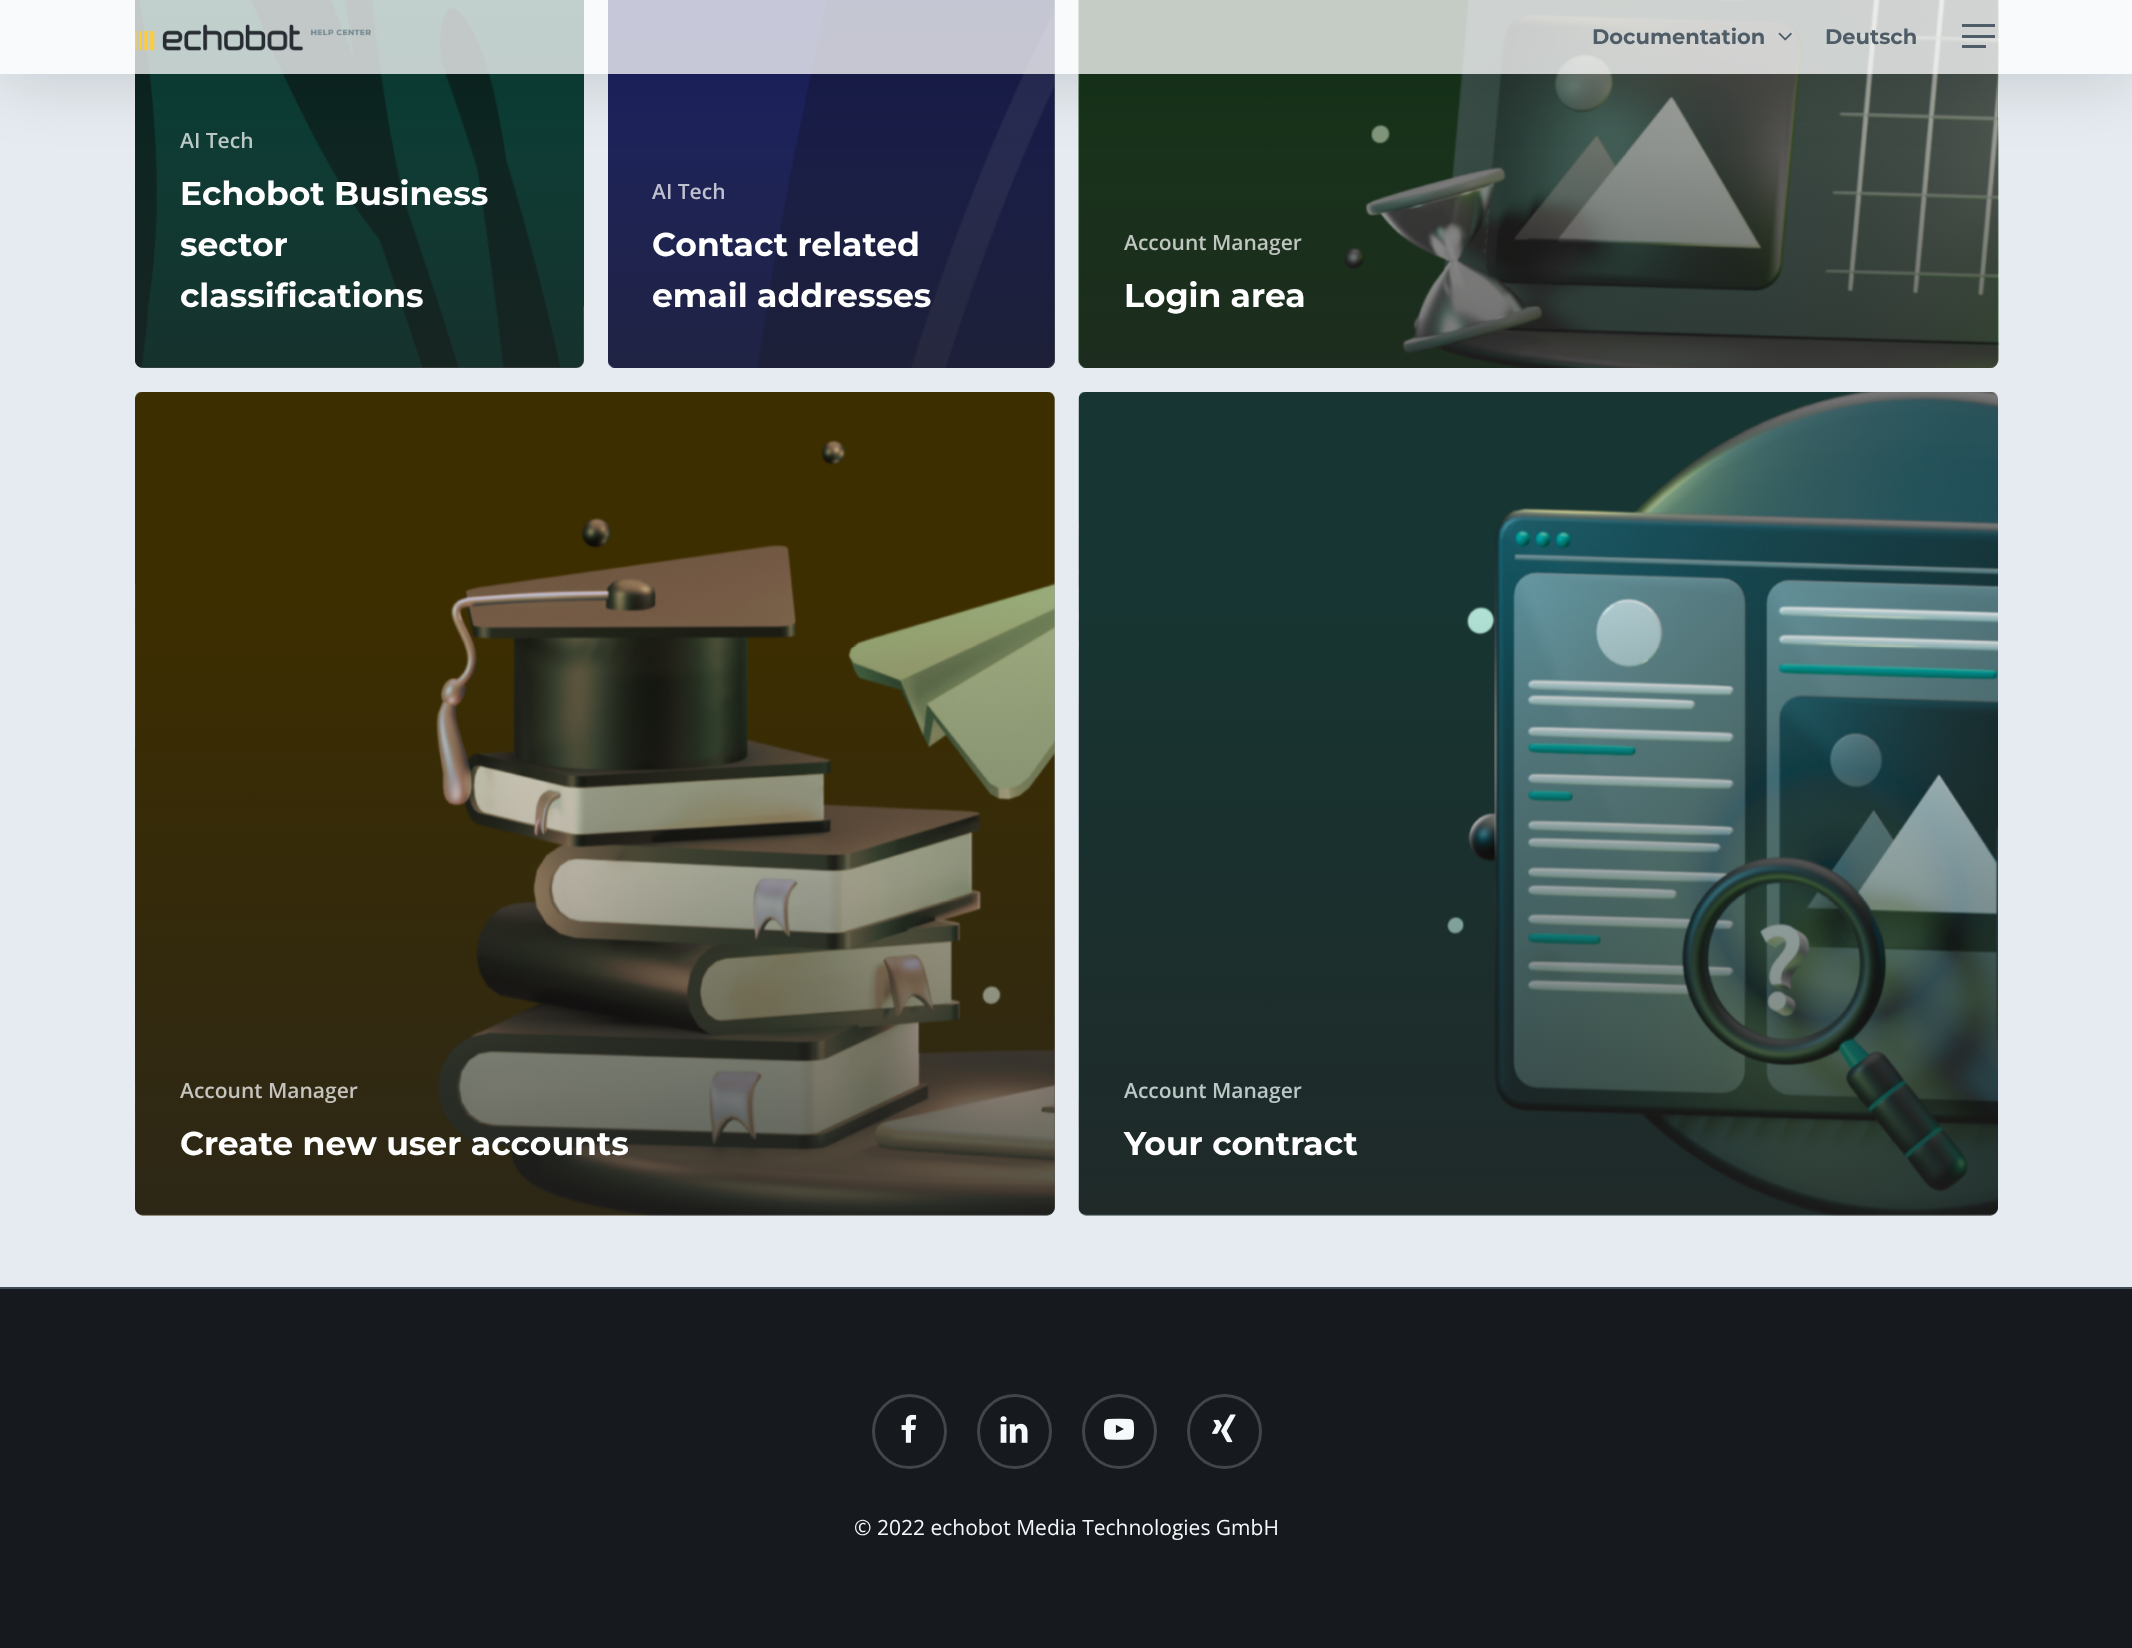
<svg xmlns="http://www.w3.org/2000/svg" width="2132" height="1648">
<defs>
<linearGradient id="g1" gradientUnits="userSpaceOnUse" x1="360" y1="-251" x2="360" y2="371"><stop offset="0" stop-color="#232323" stop-opacity="0"/><stop offset="1" stop-color="#232323" stop-opacity="0.65"/></linearGradient>
<linearGradient id="g2" gradientUnits="userSpaceOnUse" x1="832" y1="-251" x2="832" y2="371"><stop offset="0" stop-color="#232323" stop-opacity="0"/><stop offset="1" stop-color="#232323" stop-opacity="0.65"/></linearGradient>
<linearGradient id="g3" gradientUnits="userSpaceOnUse" x1="1541" y1="-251" x2="1541" y2="371"><stop offset="0" stop-color="#232323" stop-opacity="0"/><stop offset="1" stop-color="#232323" stop-opacity="0.65"/></linearGradient>
<clipPath id="clip1"><path d="M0 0h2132v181h-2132zm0 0h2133v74h-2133z" clip-rule="evenodd"/></clipPath>
<linearGradient id="g4" gradientUnits="userSpaceOnUse" x1="597" y1="599" x2="597" y2="1220"><stop offset="0" stop-color="#232323" stop-opacity="0"/><stop offset="1" stop-color="#232323" stop-opacity="0.65"/></linearGradient>
<linearGradient id="g5" gradientUnits="userSpaceOnUse" x1="1541" y1="599" x2="1541" y2="1220"><stop offset="0" stop-color="#232323" stop-opacity="0"/><stop offset="1" stop-color="#232323" stop-opacity="0.65"/></linearGradient>
</defs>
<rect width="100%" height="100%" fill="#e5ebf0"/>
<rect x="135" y="-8" width="449" height="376" rx="8" fill="#a0a5a8"/>
<image x="135" y="0" width="449" height="368" href="media/3.png"/>
<path d="M135-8h449v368c0 4.5-3.5 8-8 8h-433c-4.5 0-8-3.5-8-8z" fill="url(#g1)"/>
<rect x="608" y="-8" width="447" height="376" rx="8" fill="#a0a5a8"/>
<image x="608" y="0" width="447" height="368" href="media/4.png"/>
<path d="M608-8h447v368c0 4.5-3.5 8-8 8h-431c-4.5 0-8-3.5-8-8z" fill="url(#g2)"/>
<rect x="1079" y="-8" width="919" height="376" rx="8" fill="#a0a5a8"/>
<image x="1078" y="0" width="921" height="368" href="media/5.png"/>
<path d="M1079-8h919v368c0 4.5-3.5 8-8 8h-903c-4.5 0-8-3.5-8-8z" fill="url(#g3)"/>
<g clip-path="url(#clip1)">
<rect y="5" width="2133" height="73" fill="#00000026" filter="blur(34px)"/>
</g>
<rect width="2132" height="74" fill="#ffffffbf"/>
<image x="135" y="24" width="236" height="27" href="media/1.png"/>
<text x="1592" y="44" style="font-family:Montserrat;font-size:21px;font-weight:bold;fill:#4e5d67">Documentation</text>
<image x="1778" y="32" width="14" height="9" href="media/2.png"/>
<text x="1825" y="44" style="font-family:Montserrat;font-size:21px;font-weight:bold;fill:#4e5d67">Deutsch</text>
<rect x="1962" y="24" width="33" height="3" fill="#4e5d67"/>
<rect x="1962" y="45" width="24" height="3" fill="#4e5d67"/>
<rect x="1962" y="35" width="33" height="3" fill="#4e5d67"/>
<text x="180" y="148" style="font-family:Open Sans;font-size:21px;font-weight:600;fill:#bcc8c6">AI Tech</text>
<text x="180" y="205" style="font-family:Montserrat;font-size:33px;font-weight:bold;fill:#fff">Echobot Business</text>
<text x="180" y="256" style="font-family:Montserrat;font-size:33px;font-weight:bold;fill:#fff">sector</text>
<text x="180" y="307" style="font-family:Montserrat;font-size:33px;font-weight:bold;fill:#fff">classifications</text>
<text x="652" y="199" style="font-family:Open Sans;font-size:21px;font-weight:600;fill:#c0c1cf">AI Tech</text>
<text x="652" y="256" style="font-family:Montserrat;font-size:33px;font-weight:bold;fill:#fff">Contact related</text>
<text x="652" y="307" style="font-family:Montserrat;font-size:33px;font-weight:bold;fill:#fff">email addresses</text>
<text x="1124" y="250" style="font-family:Open Sans;font-size:21px;font-weight:600;fill:#bfc5bf">Account Manager</text>
<text x="1124" y="307" style="font-family:Montserrat;font-size:33px;font-weight:bold;fill:#fff">Login area</text>
<rect x="135" y="392" width="920" height="823" rx="8" fill="#a0a5a8"/>
<image x="135" y="392" width="920" height="824" href="media/6.png"/>
<path d="M135 599h920v608c0 4.5-3.5 8-8 8h-904c-4.5 0-8-3.5-8-8z" fill="url(#g4)"/>
<text x="180" y="1098" style="font-family:Open Sans;font-size:21px;font-weight:600;fill:#c5c3bd">Account Manager</text>
<text x="180" y="1155" style="font-family:Montserrat;font-size:33px;font-weight:bold;fill:#fff">Create new user accounts</text>
<image x="1078" y="392" width="920" height="824" href="media/7.png"/>
<path d="M1079 599h919v608c0 4.5-3.5 8-8 8h-903c-4.5 0-8-3.5-8-8z" fill="url(#g5)"/>
<text x="1124" y="1098" style="font-family:Open Sans;font-size:21px;font-weight:600;fill:#bcc8c6">Account Manager</text>
<text x="1124" y="1155" style="font-family:Montserrat;font-size:33px;font-weight:bold;fill:#fff">Your contract</text>
<rect y="1289" width="2132" height="359" fill="#16191d"/>
<rect y="1287" width="2132" height="2" fill="#3f4c55"/>
<image x="901" y="1414" width="16" height="29" href="media/8.png"/>
<circle cx="909.5" cy="1431.5" r="36" fill="none" stroke="#434649" stroke-width="3"/>
<image x="1000" y="1416" width="28" height="27" href="media/9.png"/>
<circle cx="1014.5" cy="1431.5" r="36" fill="none" stroke="#434649" stroke-width="3"/>
<image x="1104" y="1418" width="30" height="22" href="media/10.png"/>
<circle cx="1119.5" cy="1431.5" r="36" fill="none" stroke="#434649" stroke-width="3"/>
<image x="1212" y="1414" width="24" height="29" href="media/11.png"/>
<circle cx="1224.5" cy="1431.5" r="36" fill="none" stroke="#434649" stroke-width="3"/>
<text x="854" y="1535" style="font-family:Open Sans;font-size:21px;fill:#f5f9fb">© 2022 echobot Media Technologies GmbH</text>
</svg>
